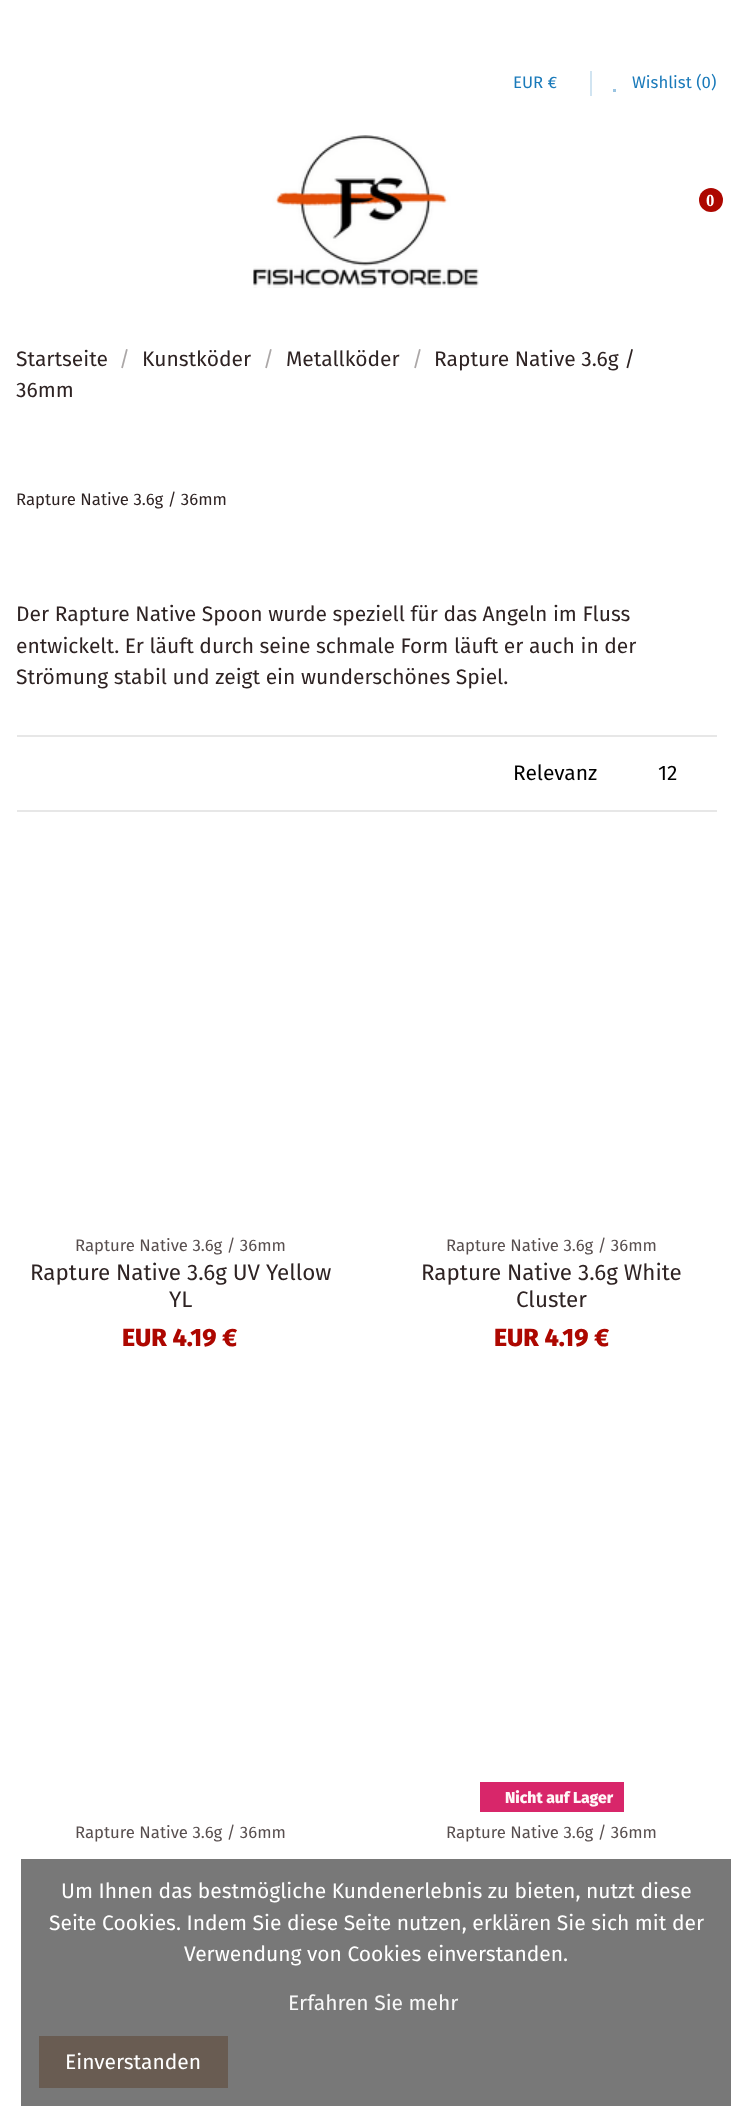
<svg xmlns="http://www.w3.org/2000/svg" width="731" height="2127">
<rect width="100%" height="100%" fill="#fff"/>
<text x="513" y="88" style="font-family:Fira Sans;font-size:16.75px;fill:#1a7aba">EUR €</text>
<rect x="590" y="71" width="2" height="25" fill="#d1e4f1"/>
<rect x="613" y="89" width="3" height="3" fill="#9ac4e1"/>
<text x="632" y="88" style="font-family:Fira Sans;font-size:16.75px;fill:#1a7aba">Wishlist (0)</text>
<image x="253" y="135" width="226" height="153" href="media/1.png"/>
<circle cx="711" cy="200" r="12" fill="#ad0700"/>
<text x="706" y="206" style="font-family:Liberation Serif;font-size:16.75px;font-weight:bold;fill:#fff">0</text>
<text x="16" y="366" style="font-family:Fira Sans;font-size:21px;fill:#2e2323">Startseite</text>
<text x="119" y="366" style="font-family:Fira Sans;font-size:21px;fill:#aba7a7">/</text>
<text x="142" y="366" style="font-family:Fira Sans;font-size:21px;fill:#2e2323">Kunstköder</text>
<text x="263" y="366" style="font-family:Fira Sans;font-size:21px;fill:#aba7a7">/</text>
<text x="286" y="366" style="font-family:Fira Sans;font-size:21px;fill:#2e2323">Metallköder</text>
<text x="412" y="366" style="font-family:Fira Sans;font-size:21px;fill:#aba7a7">/</text>
<text x="434" y="366" style="font-family:Fira Sans;font-size:21px;fill:#2e2323">Rapture Native 3.6g /</text>
<text x="16" y="397" style="font-family:Fira Sans;font-size:21px;fill:#2e2323">36mm</text>
<text x="16" y="505" style="font-family:Fira Sans;font-size:16.75px;fill:#2e2323">Rapture Native 3.6g / 36mm</text>
<text x="16" y="621" style="font-family:Fira Sans;font-size:21px;fill:#2e2323">Der Rapture Native Spoon wurde speziell für das Angeln im Fluss</text>
<text x="16" y="653" style="font-family:Fira Sans;font-size:21px;fill:#2e2323">entwickelt. Er läuft durch seine schmale Form läuft er auch in der</text>
<text x="16" y="684" style="font-family:Fira Sans;font-size:21px;fill:#2e2323">Strömung stabil und zeigt ein wunderschönes Spiel.</text>
<rect x="17" y="735" width="700" height="2" fill="#e7e7e7"/>
<rect x="17" y="810" width="700" height="2" fill="#e7e7e7"/>
<text x="513" y="780" style="font-family:Fira Sans;font-size:21px;fill:#000">Relevanz</text>
<text x="658" y="780" style="font-family:Fira Sans;font-size:21px;fill:#000">12</text>
<text x="75" y="1251" style="font-family:Fira Sans;font-size:16.75px;fill:#584f4f">Rapture Native 3.6g / 36mm</text>
<text x="30" y="1280" style="font-family:Fira Sans;font-size:22.4px;fill:#2e2323">Rapture Native 3.6g UV Yellow</text>
<text x="169" y="1307" style="font-family:Fira Sans;font-size:22.4px;fill:#2e2323">YL</text>
<text x="122" y="1346" style="font-family:Fira Sans;font-size:25px;font-weight:800;fill:#ad0700">EUR 4.19 €</text>
<text x="446" y="1251" style="font-family:Fira Sans;font-size:16.75px;fill:#584f4f">Rapture Native 3.6g / 36mm</text>
<text x="421" y="1280" style="font-family:Fira Sans;font-size:22.4px;fill:#2e2323">Rapture Native 3.6g White</text>
<text x="516" y="1307" style="font-family:Fira Sans;font-size:22.4px;fill:#2e2323">Cluster</text>
<text x="494" y="1346" style="font-family:Fira Sans;font-size:25px;font-weight:800;fill:#ad0700">EUR 4.19 €</text>
<text x="75" y="1838" style="font-family:Fira Sans;font-size:16.75px;fill:#584f4f">Rapture Native 3.6g / 36mm</text>
<rect x="480" y="1782" width="144" height="30" fill="#d8266a"/>
<text x="505" y="1803" style="font-family:Fira Sans;font-size:15.75px;font-weight:800;fill:#fff7f7">Nicht auf Lager</text>
<text x="446" y="1838" style="font-family:Fira Sans;font-size:16.75px;fill:#584f4f">Rapture Native 3.6g / 36mm</text>
<rect x="21" y="1859" width="710" height="247" fill="#787878"/>
<text x="61" y="1898" style="font-family:Fira Sans;font-size:21px;fill:#fff">Um Ihnen das bestmögliche Kundenerlebnis zu bieten, nutzt diese</text>
<text x="49" y="1930" style="font-family:Fira Sans;font-size:21px;fill:#fff">Seite Cookies. Indem Sie diese Seite nutzen, erklären Sie sich mit der</text>
<text x="184" y="1961" style="font-family:Fira Sans;font-size:21px;fill:#fff">Verwendung von Cookies einverstanden.</text>
<text x="288" y="2010" style="font-family:Fira Sans;font-size:21px;fill:#f8f8f8">Erfahren Sie mehr</text>
<rect x="39" y="2036" width="189" height="52" fill="#695c52"/>
<text x="65" y="2069" style="font-family:Fira Sans;font-size:21px;fill:#fff">Einverstanden</text>
</svg>
